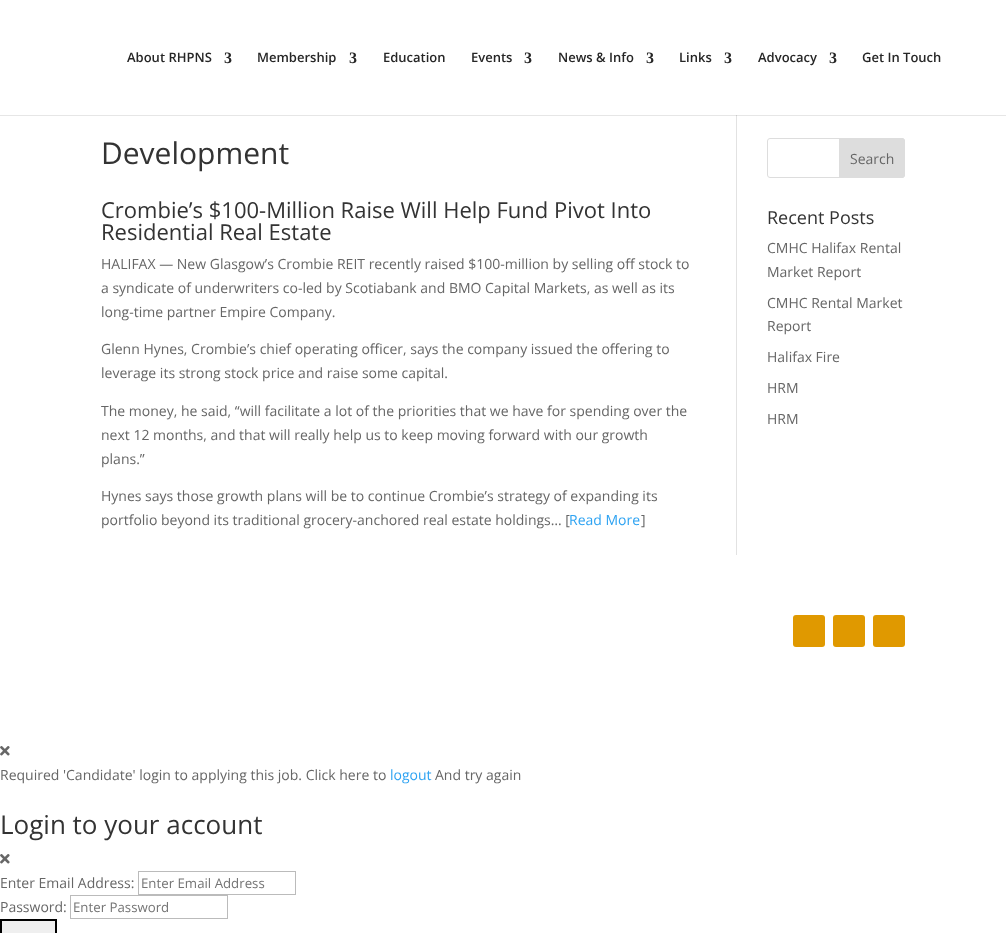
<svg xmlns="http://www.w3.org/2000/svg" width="1006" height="933">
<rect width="100%" height="100%" fill="#fff"/>
<rect y="115" width="1006" height="1" fill="#e6e6e6"/>
<text x="127" y="62" style="font-family:Open Sans;font-size:13px;font-weight:600;fill:#262626">About RHPNS</text>
<text x="224" y="63" style="font-family:Liberation Serif;font-size:16px;font-weight:bold;fill:#262626">3</text>
<text x="257" y="62" style="font-family:Open Sans;font-size:13px;font-weight:600;fill:#262626">Membership</text>
<text x="349" y="63" style="font-family:Liberation Serif;font-size:16px;font-weight:bold;fill:#262626">3</text>
<text x="383" y="62" style="font-family:Open Sans;font-size:13px;font-weight:600;fill:#262626">Education</text>
<text x="471" y="62" style="font-family:Open Sans;font-size:13px;font-weight:600;fill:#262626">Events</text>
<text x="524" y="63" style="font-family:Liberation Serif;font-size:16px;font-weight:bold;fill:#262626">3</text>
<text x="558" y="62" style="font-family:Open Sans;font-size:13px;font-weight:600;fill:#262626">News &amp; Info</text>
<text x="646" y="63" style="font-family:Liberation Serif;font-size:16px;font-weight:bold;fill:#262626">3</text>
<text x="679" y="62" style="font-family:Open Sans;font-size:13px;font-weight:600;fill:#262626">Links</text>
<text x="724" y="63" style="font-family:Liberation Serif;font-size:16px;font-weight:bold;fill:#262626">3</text>
<text x="758" y="62" style="font-family:Open Sans;font-size:13px;font-weight:600;fill:#262626">Advocacy</text>
<text x="829" y="63" style="font-family:Liberation Serif;font-size:16px;font-weight:bold;fill:#262626">3</text>
<text x="862" y="62" style="font-family:Open Sans;font-size:13px;font-weight:600;fill:#262626">Get In Touch</text>
<rect x="736" y="116" width="1" height="439" fill="#e2e2e2"/>
<rect x="736" y="115" width="1" height="1" fill="#cbcbcb"/>
<text x="101" y="164" style="font-family:Open Sans;font-size:30px;fill:#333">Development</text>
<text x="101" y="218" style="font-family:Open Sans;font-size:22px;fill:#333">Crombie’s $100-Million Raise Will Help Fund Pivot Into</text>
<text x="101" y="240" style="font-family:Open Sans;font-size:22px;fill:#333">Residential Real Estate</text>
<text x="101" y="269" style="font-family:Open Sans;font-size:14px;fill:#666">HALIFAX — New Glasgow’s Crombie REIT recently raised $100-million by selling off stock to</text>
<text x="101" y="293" style="font-family:Open Sans;font-size:14px;fill:#666">a syndicate of underwriters co-led by Scotiabank and BMO Capital Markets, as well as its</text>
<text x="101" y="317" style="font-family:Open Sans;font-size:14px;fill:#666">long-time partner Empire Company.</text>
<text x="101" y="354" style="font-family:Open Sans;font-size:14px;fill:#666">Glenn Hynes, Crombie’s chief operating officer, says the company issued the offering to</text>
<text x="101" y="378" style="font-family:Open Sans;font-size:14px;fill:#666">leverage its strong stock price and raise some capital.</text>
<text x="101" y="416" style="font-family:Open Sans;font-size:14px;fill:#666">The money, he said, “will facilitate a lot of the priorities that we have for spending over the</text>
<text x="101" y="440" style="font-family:Open Sans;font-size:14px;fill:#666">next 12 months, and that will really help us to keep moving forward with our growth</text>
<text x="101" y="464" style="font-family:Open Sans;font-size:14px;fill:#666">plans.”</text>
<text x="101" y="501" style="font-family:Open Sans;font-size:14px;fill:#666">Hynes says those growth plans will be to continue Crombie’s strategy of expanding its</text>
<text x="101" y="525" style="font-family:Open Sans;font-size:14px;fill:#666">portfolio beyond its traditional grocery-anchored real estate holdings… [</text>
<text x="569" y="525" style="font-family:Open Sans;font-size:14px;fill:#2ea3f2">Read More</text>
<text x="641" y="525" style="font-family:Open Sans;font-size:14px;fill:#666">]</text>
<rect x="767.5" y="138.5" width="137" height="39" rx="2.5" fill="none" stroke="#ddd"/>
<path d="M839.5 138.5h62.5c1.5 0 2.5 1 2.5 2.5v34c0 1.5-1 2.5-2.5 2.5h-62.5z" fill="#ddd" stroke="#ddd"/>
<text x="850" y="164" style="font-family:Open Sans;font-size:14px;fill:#666">Search</text>
<text x="767" y="224" style="font-family:Open Sans;font-size:18px;fill:#333">Recent Posts</text>
<text x="767" y="253" style="font-family:Open Sans;font-size:14px;fill:#666">CMHC Halifax Rental</text>
<text x="767" y="277" style="font-family:Open Sans;font-size:14px;fill:#666">Market Report</text>
<text x="767" y="308" style="font-family:Open Sans;font-size:14px;fill:#666">CMHC Rental Market</text>
<text x="767" y="331" style="font-family:Open Sans;font-size:14px;fill:#666">Report</text>
<text x="767" y="362" style="font-family:Open Sans;font-size:14px;fill:#666">Halifax Fire</text>
<text x="767" y="393" style="font-family:Open Sans;font-size:14px;fill:#666">HRM</text>
<text x="767" y="424" style="font-family:Open Sans;font-size:14px;fill:#666">HRM</text>
<rect x="793" y="615" width="32" height="32" rx="3" fill="#e09900"/>
<rect x="833" y="615" width="32" height="32" rx="3" fill="#e09900"/>
<rect x="873" y="615" width="32" height="32" rx="3" fill="#e09900"/>
<image x="0" y="746" width="10" height="10" href="media/1.png"/>
<text x="0" y="780" style="font-family:Open Sans;font-size:14px;fill:#666">Required 'Candidate' login to applying this job. Click here to</text>
<text x="390" y="780" style="font-family:Open Sans;font-size:14px;fill:#2ea3f2">logout</text>
<text x="435" y="780" style="font-family:Open Sans;font-size:14px;fill:#666">And try again</text>
<text x="0" y="834" style="font-family:Open Sans;font-size:26px;fill:#333">Login to your account</text>
<image x="0" y="854" width="10" height="10" href="media/1.png"/>
<text x="0" y="888" style="font-family:Open Sans;font-size:14px;fill:#666">Enter Email Address:</text>
<rect x="138.5" y="871.5" width="157" height="23" fill="none" stroke="#bbb"/>
<text x="141" y="888" style="font-family:Open Sans;font-size:13.25px;fill:#757575">Enter Email Address</text>
<text x="0" y="912" style="font-family:Open Sans;font-size:14px;fill:#666">Password:</text>
<rect x="70.5" y="895.5" width="157" height="23" fill="none" stroke="#bbb"/>
<text x="73" y="912" style="font-family:Open Sans;font-size:13.25px;fill:#757575">Enter Password</text>
<rect x="1" y="920" width="55" height="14" fill="#efefef" stroke="#000" stroke-width="2"/>
</svg>
